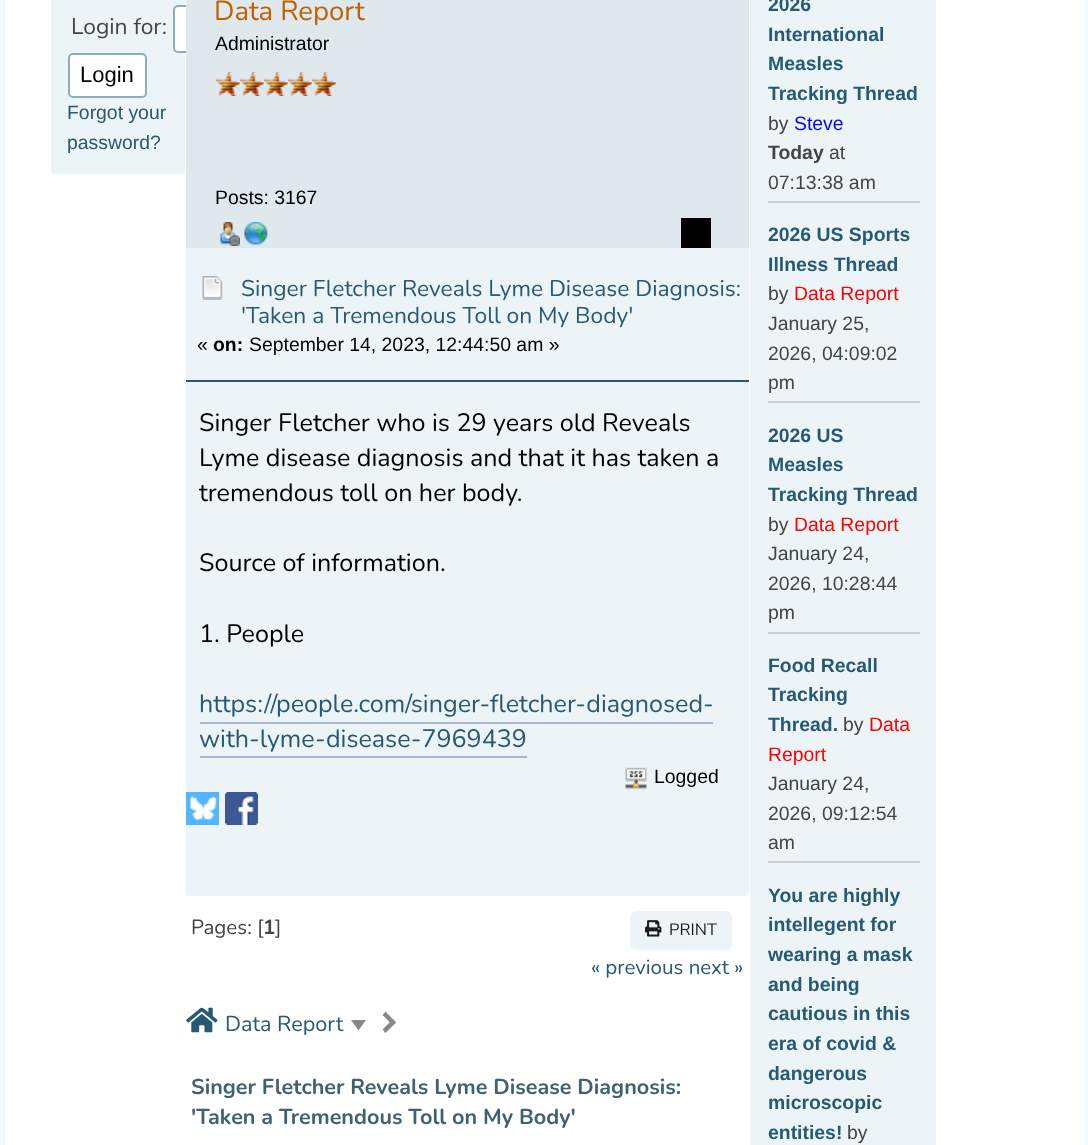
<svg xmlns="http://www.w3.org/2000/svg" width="1088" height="1145">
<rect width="100%" height="100%" fill="#f5fcff"/>
<rect x="6" y="-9" width="1077" height="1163" fill="#004c751a" filter="blur(3px)"/>
<rect x="5" width="1080" height="1145" fill="#fff"/>
<rect x="51" y="-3" width="134" height="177" rx="3" fill="#edf4f7"/>
<text x="71" y="34" style="font-family:Nunito;font-size:22.8px;fill:#444">Login for:</text>
<rect x="174" y="6" width="134" height="46" rx="4" fill="#fff" stroke="#8bafc1" stroke-width="2"/>
<rect x="69" y="54" width="77" height="43" rx="4" fill="#fff" stroke="#8bafc1" stroke-width="2"/>
<text x="80" y="82" style="font-family:Liberation Sans;font-size:22px;fill:#000">Login</text>
<text x="67" y="119" style="font-family:Liberation Sans;font-size:19.4px;fill:#265973">Forgot your</text>
<text x="67" y="149" style="font-family:Liberation Sans;font-size:19.4px;fill:#265973">password?</text>
<rect x="186" y="-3" width="563" height="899" rx="3" fill="#edf4f7"/>
<rect x="186" width="563" height="248" fill="#dee8ed"/>
<text x="214" y="20" style="font-family:Nunito;font-size:27.5px;fill:#c06002">Data Report</text>
<text x="215" y="50" style="font-family:Liberation Sans;font-size:19.4px;fill:#000">Administrator</text>
<image x="216" y="72" width="24" height="24" href="media/1.png"/>
<image x="240" y="72" width="24" height="24" href="media/1.png"/>
<image x="264" y="72" width="24" height="24" href="media/2.png"/>
<image x="288" y="72" width="24" height="24" href="media/3.png"/>
<image x="312" y="72" width="24" height="24" href="media/3.png"/>
<text x="215" y="204" style="font-family:Liberation Sans;font-size:19.4px;fill:#000">Posts: 3167</text>
<image x="220" y="222" width="20" height="24" href="media/4.png"/>
<image x="244" y="222" width="24" height="23" href="media/5.png"/>
<rect x="681" y="218" width="30" height="30" fill="#000"/>
<image x="202" y="276" width="21" height="24" href="media/6.png"/>
<text x="241" y="296" style="font-family:Nunito;font-size:22.8px;fill:#265973">Singer Fletcher Reveals Lyme Disease Diagnosis:</text>
<text x="241" y="323" style="font-family:Nunito;font-size:22.8px;fill:#265973">'Taken a Tremendous Toll on My Body'</text>
<text x="197" y="351" style="font-family:Liberation Sans;font-size:19.4px;fill:#000">«</text>
<text x="213" y="351" style="font-family:Liberation Sans;font-size:19.4px;font-weight:bold;fill:#000">on:</text>
<text x="249" y="351" style="font-family:Liberation Sans;font-size:19.4px;fill:#000">September 14, 2023, 12:44:50 am »</text>
<rect x="186" y="380" width="563" height="2" fill="#265973"/>
<text x="199" y="431" style="font-family:Nunito;font-size:25.1px;fill:#000">Singer Fletcher who is 29 years old Reveals</text>
<text x="199" y="466" style="font-family:Nunito;font-size:25.1px;fill:#000">Lyme disease diagnosis and that it has taken a</text>
<text x="199" y="501" style="font-family:Nunito;font-size:25.1px;fill:#000">tremendous toll on her body.</text>
<text x="199" y="571" style="font-family:Nunito;font-size:25.1px;fill:#000">Source of information.</text>
<text x="199" y="642" style="font-family:Nunito;font-size:25.1px;fill:#000">1. People</text>
<text x="199" y="712" style="font-family:Nunito;font-size:25.1px;fill:#265973">https://people.com/singer-fletcher-diagnosed-</text>
<text x="199" y="747" style="font-family:Nunito;font-size:25.1px;fill:#265973">with-lyme-disease-7969439</text>
<rect x="200" y="722" width="513" height="2" fill="#a8b6cf"/>
<rect x="200" y="756" width="327" height="2" fill="#a8b6cf"/>
<image x="625" y="767" width="22" height="23" href="media/7.png"/>
<text x="654" y="783" style="font-family:Liberation Sans;font-size:19.4px;fill:#000">Logged</text>
<image x="186" y="792" width="33" height="33" href="media/8.png"/>
<image x="225" y="792" width="33" height="33" href="media/9.png"/>
<text x="191" y="934" style="font-family:Nunito;font-size:20.5px;fill:#444">Pages: [</text>
<text x="263" y="934" style="font-family:Nunito;font-size:20.5px;font-weight:bold;fill:#444">1</text>
<text x="275" y="934" style="font-family:Nunito;font-size:20.5px;fill:#444">]</text>
<rect x="630" y="911" width="102" height="39" rx="6" fill="#edf4f7"/>
<image x="645" y="920" width="17" height="17" href="media/10.png"/>
<text x="669" y="935" style="font-family:Nunito;font-size:16.5px;fill:#1a1a1a">PRINT</text>
<text x="591" y="974" style="font-family:Nunito;font-size:20.5px;fill:#265973">« previous next »</text>
<image x="186" y="1007" width="32" height="26" href="media/11.png"/>
<text x="225" y="1031" style="font-family:Nunito;font-size:21.6px;fill:#265973">Data Report</text>
<path d="M351 1020h15l-7.5 10.5z" fill="#888"/>
<path d="M382.5 1015l3-3.5l10.5 11l-3 3z" fill="#888"/>
<path d="M382.5 1029.5l10.5-10.5l3 3.5l-10.5 10.5z" fill="#888"/>
<text x="191" y="1094" style="font-family:Nunito;font-size:21.6px;font-weight:bold;fill:#3e6274">Singer Fletcher Reveals Lyme Disease Diagnosis:</text>
<text x="191" y="1124" style="font-family:Nunito;font-size:21.6px;font-weight:bold;fill:#3e6274">'Taken a Tremendous Toll on My Body'</text>
<rect x="750" width="186" height="1145" fill="#edf4f7"/>
<text x="768" y="11" style="font-family:Liberation Sans;font-size:19.4px;font-weight:bold;fill:#265973">2026</text>
<text x="768" y="41" style="font-family:Liberation Sans;font-size:19.4px;font-weight:bold;fill:#265973">International</text>
<text x="768" y="70" style="font-family:Liberation Sans;font-size:19.4px;font-weight:bold;fill:#265973">Measles</text>
<text x="768" y="100" style="font-family:Liberation Sans;font-size:19.4px;font-weight:bold;fill:#265973">Tracking Thread</text>
<text x="768" y="130" style="font-family:Liberation Sans;font-size:19.4px;fill:#444">by</text>
<text x="794" y="130" style="font-family:Liberation Sans;font-size:19.4px;fill:#00f">Steve</text>
<text x="768" y="159" style="font-family:Liberation Sans;font-size:19.4px;font-weight:bold;fill:#444">Today</text>
<text x="829" y="159" style="font-family:Liberation Sans;font-size:19.4px;fill:#444">at</text>
<text x="768" y="189" style="font-family:Liberation Sans;font-size:19.4px;fill:#444">07:13:38 am</text>
<rect x="768" y="201" width="152" height="2" fill="#ccc"/>
<text x="768" y="241" style="font-family:Liberation Sans;font-size:19.4px;font-weight:bold;fill:#265973">2026 US Sports</text>
<text x="768" y="271" style="font-family:Liberation Sans;font-size:19.4px;font-weight:bold;fill:#265973">Illness Thread</text>
<text x="768" y="300" style="font-family:Liberation Sans;font-size:19.4px;fill:#444">by</text>
<text x="794" y="300" style="font-family:Liberation Sans;font-size:19.4px;fill:#f00">Data Report</text>
<text x="768" y="330" style="font-family:Liberation Sans;font-size:19.4px;fill:#444">January 25,</text>
<text x="768" y="360" style="font-family:Liberation Sans;font-size:19.4px;fill:#444">2026, 04:09:02</text>
<text x="768" y="389" style="font-family:Liberation Sans;font-size:19.4px;fill:#444">pm</text>
<rect x="768" y="401" width="152" height="2" fill="#ccc"/>
<text x="768" y="442" style="font-family:Liberation Sans;font-size:19.4px;font-weight:bold;fill:#265973">2026 US</text>
<text x="768" y="471" style="font-family:Liberation Sans;font-size:19.4px;font-weight:bold;fill:#265973">Measles</text>
<text x="768" y="501" style="font-family:Liberation Sans;font-size:19.4px;font-weight:bold;fill:#265973">Tracking Thread</text>
<text x="768" y="531" style="font-family:Liberation Sans;font-size:19.4px;fill:#444">by</text>
<text x="794" y="531" style="font-family:Liberation Sans;font-size:19.4px;fill:#f00">Data Report</text>
<text x="768" y="560" style="font-family:Liberation Sans;font-size:19.4px;fill:#444">January 24,</text>
<text x="768" y="590" style="font-family:Liberation Sans;font-size:19.4px;fill:#444">2026, 10:28:44</text>
<text x="768" y="619" style="font-family:Liberation Sans;font-size:19.4px;fill:#444">pm</text>
<rect x="768" y="632" width="152" height="2" fill="#ccc"/>
<text x="768" y="672" style="font-family:Liberation Sans;font-size:19.4px;font-weight:bold;fill:#265973">Food Recall</text>
<text x="768" y="701" style="font-family:Liberation Sans;font-size:19.4px;font-weight:bold;fill:#265973">Tracking</text>
<text x="768" y="731" style="font-family:Liberation Sans;font-size:19.4px;font-weight:bold;fill:#265973">Thread.</text>
<text x="843" y="731" style="font-family:Liberation Sans;font-size:19.4px;fill:#444">by</text>
<text x="869" y="731" style="font-family:Liberation Sans;font-size:19.4px;fill:#f00">Data</text>
<text x="768" y="761" style="font-family:Liberation Sans;font-size:19.4px;fill:#f00">Report</text>
<text x="768" y="790" style="font-family:Liberation Sans;font-size:19.4px;fill:#444">January 24,</text>
<text x="768" y="820" style="font-family:Liberation Sans;font-size:19.4px;fill:#444">2026, 09:12:54</text>
<text x="768" y="849" style="font-family:Liberation Sans;font-size:19.4px;fill:#444">am</text>
<rect x="768" y="861" width="152" height="2" fill="#ccc"/>
<text x="768" y="902" style="font-family:Liberation Sans;font-size:19.4px;font-weight:bold;fill:#265973">You are highly</text>
<text x="768" y="931" style="font-family:Liberation Sans;font-size:19.4px;font-weight:bold;fill:#265973">intellegent for</text>
<text x="768" y="961" style="font-family:Liberation Sans;font-size:19.4px;font-weight:bold;fill:#265973">wearing a mask</text>
<text x="768" y="991" style="font-family:Liberation Sans;font-size:19.4px;font-weight:bold;fill:#265973">and being</text>
<text x="768" y="1020" style="font-family:Liberation Sans;font-size:19.4px;font-weight:bold;fill:#265973">cautious in this</text>
<text x="768" y="1050" style="font-family:Liberation Sans;font-size:19.4px;font-weight:bold;fill:#265973">era of covid &amp;</text>
<text x="768" y="1080" style="font-family:Liberation Sans;font-size:19.4px;font-weight:bold;fill:#265973">dangerous</text>
<text x="768" y="1109" style="font-family:Liberation Sans;font-size:19.4px;font-weight:bold;fill:#265973">microscopic</text>
<text x="768" y="1139" style="font-family:Liberation Sans;font-size:19.4px;font-weight:bold;fill:#265973">entities!</text>
<text x="847" y="1139" style="font-family:Liberation Sans;font-size:19.4px;fill:#444">by</text>
</svg>
